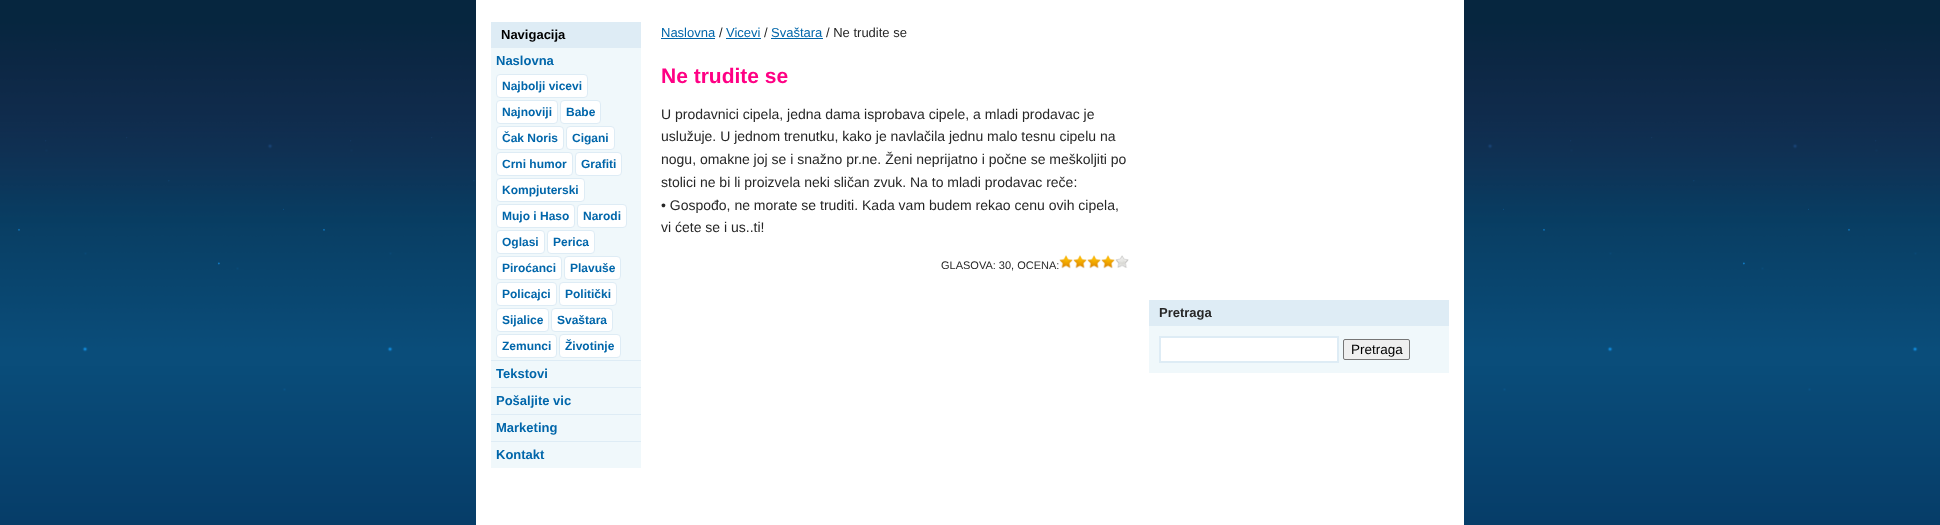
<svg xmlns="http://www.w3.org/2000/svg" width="1940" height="525">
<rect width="100%" height="100%" fill="#fff"/>
<image x="0" y="0" width="1940" height="525" href="media/1.png"/>
<rect x="476" width="988" height="525" fill="#fff"/>
<rect x="491" y="48" width="150" height="420" fill="#f0f8fb"/>
<rect x="491" y="22" width="150" height="26" fill="#deecf5"/>
<text x="501" y="39" style="font-family:Liberation Sans;font-size:13px;font-weight:bold;fill:#000">Navigacija</text>
<rect x="491" y="360" width="150" height="1" fill="#deecf5"/>
<text x="496" y="65" style="font-family:Liberation Sans;font-size:13px;font-weight:bold;fill:#06a">Naslovna</text>
<rect x="496.5" y="74.5" width="91" height="23" rx="3.5" fill="#fff" stroke="#deecf5"/>
<text x="502" y="90" style="font-family:Liberation Sans;font-size:12px;font-weight:bold;fill:#06a">Najbolji vicevi</text>
<rect x="496.5" y="100.5" width="61" height="23" rx="3.5" fill="#fff" stroke="#deecf5"/>
<text x="502" y="116" style="font-family:Liberation Sans;font-size:12px;font-weight:bold;fill:#06a">Najnoviji</text>
<rect x="560.5" y="100.5" width="40" height="23" rx="3.5" fill="#fff" stroke="#deecf5"/>
<text x="566" y="116" style="font-family:Liberation Sans;font-size:12px;font-weight:bold;fill:#06a">Babe</text>
<rect x="496.5" y="126.5" width="67" height="23" rx="3.5" fill="#fff" stroke="#deecf5"/>
<text x="502" y="142" style="font-family:Liberation Sans;font-size:12px;font-weight:bold;fill:#06a">Čak Noris</text>
<rect x="566.5" y="126.5" width="48" height="23" rx="3.5" fill="#fff" stroke="#deecf5"/>
<text x="572" y="142" style="font-family:Liberation Sans;font-size:12px;font-weight:bold;fill:#06a">Cigani</text>
<rect x="496.5" y="152.5" width="76" height="23" rx="3.5" fill="#fff" stroke="#deecf5"/>
<text x="502" y="168" style="font-family:Liberation Sans;font-size:12px;font-weight:bold;fill:#06a">Crni humor</text>
<rect x="575.5" y="152.5" width="46" height="23" rx="3.5" fill="#fff" stroke="#deecf5"/>
<text x="581" y="168" style="font-family:Liberation Sans;font-size:12px;font-weight:bold;fill:#06a">Grafiti</text>
<rect x="496.5" y="178.5" width="88" height="23" rx="3.5" fill="#fff" stroke="#deecf5"/>
<text x="502" y="194" style="font-family:Liberation Sans;font-size:12px;font-weight:bold;fill:#06a">Kompjuterski</text>
<rect x="496.5" y="204.5" width="78" height="23" rx="3.5" fill="#fff" stroke="#deecf5"/>
<text x="502" y="220" style="font-family:Liberation Sans;font-size:12px;font-weight:bold;fill:#06a">Mujo i Haso</text>
<rect x="577.5" y="204.5" width="49" height="23" rx="3.5" fill="#fff" stroke="#deecf5"/>
<text x="583" y="220" style="font-family:Liberation Sans;font-size:12px;font-weight:bold;fill:#06a">Narodi</text>
<rect x="496.5" y="230.5" width="48" height="23" rx="3.5" fill="#fff" stroke="#deecf5"/>
<text x="502" y="246" style="font-family:Liberation Sans;font-size:12px;font-weight:bold;fill:#06a">Oglasi</text>
<rect x="547.5" y="230.5" width="47" height="23" rx="3.5" fill="#fff" stroke="#deecf5"/>
<text x="553" y="246" style="font-family:Liberation Sans;font-size:12px;font-weight:bold;fill:#06a">Perica</text>
<rect x="496.5" y="256.5" width="65" height="23" rx="3.5" fill="#fff" stroke="#deecf5"/>
<text x="502" y="272" style="font-family:Liberation Sans;font-size:12px;font-weight:bold;fill:#06a">Piroćanci</text>
<rect x="564.5" y="256.5" width="56" height="23" rx="3.5" fill="#fff" stroke="#deecf5"/>
<text x="570" y="272" style="font-family:Liberation Sans;font-size:12px;font-weight:bold;fill:#06a">Plavuše</text>
<rect x="496.5" y="282.5" width="60" height="23" rx="3.5" fill="#fff" stroke="#deecf5"/>
<text x="502" y="298" style="font-family:Liberation Sans;font-size:12px;font-weight:bold;fill:#06a">Policajci</text>
<rect x="559.5" y="282.5" width="57" height="23" rx="3.5" fill="#fff" stroke="#deecf5"/>
<text x="565" y="298" style="font-family:Liberation Sans;font-size:12px;font-weight:bold;fill:#06a">Politički</text>
<rect x="496.5" y="308.5" width="52" height="23" rx="3.5" fill="#fff" stroke="#deecf5"/>
<text x="502" y="324" style="font-family:Liberation Sans;font-size:12px;font-weight:bold;fill:#06a">Sijalice</text>
<rect x="551.5" y="308.5" width="61" height="23" rx="3.5" fill="#fff" stroke="#deecf5"/>
<text x="557" y="324" style="font-family:Liberation Sans;font-size:12px;font-weight:bold;fill:#06a">Svaštara</text>
<rect x="496.5" y="334.5" width="60" height="23" rx="3.5" fill="#fff" stroke="#deecf5"/>
<text x="502" y="350" style="font-family:Liberation Sans;font-size:12px;font-weight:bold;fill:#06a">Zemunci</text>
<rect x="559.5" y="334.5" width="61" height="23" rx="3.5" fill="#fff" stroke="#deecf5"/>
<text x="565" y="350" style="font-family:Liberation Sans;font-size:12px;font-weight:bold;fill:#06a">Životinje</text>
<rect x="491" y="387" width="150" height="1" fill="#deecf5"/>
<text x="496" y="378" style="font-family:Liberation Sans;font-size:13px;font-weight:bold;fill:#06a">Tekstovi</text>
<rect x="491" y="414" width="150" height="1" fill="#deecf5"/>
<text x="496" y="405" style="font-family:Liberation Sans;font-size:13px;font-weight:bold;fill:#06a">Pošaljite vic</text>
<rect x="491" y="441" width="150" height="1" fill="#deecf5"/>
<text x="496" y="432" style="font-family:Liberation Sans;font-size:13px;font-weight:bold;fill:#06a">Marketing</text>
<text x="496" y="459" style="font-family:Liberation Sans;font-size:13px;font-weight:bold;fill:#06a">Kontakt</text>
<text x="661" y="37" style="font-family:Liberation Sans;font-size:13px;fill:#06a">Naslovna</text>
<rect x="661" y="38" width="54" height="1" fill="#06a"/>
<text x="719" y="37" style="font-family:Liberation Sans;font-size:13px;fill:#262626">/</text>
<text x="726" y="37" style="font-family:Liberation Sans;font-size:13px;fill:#06a">Vicevi</text>
<rect x="726" y="38" width="35" height="1" fill="#06a"/>
<text x="764" y="37" style="font-family:Liberation Sans;font-size:13px;fill:#262626">/</text>
<text x="771" y="37" style="font-family:Liberation Sans;font-size:13px;fill:#06a">Svaštara</text>
<rect x="771" y="38" width="52" height="1" fill="#06a"/>
<text x="826" y="37" style="font-family:Liberation Sans;font-size:13px;fill:#262626">/ Ne trudite se</text>
<text x="661" y="83" style="font-family:Liberation Sans;font-size:21px;font-weight:bold;fill:#ff0084">Ne trudite se</text>
<text x="661" y="119" style="font-family:Liberation Sans;font-size:14px;fill:#262626">U prodavnici cipela, jedna dama isprobava cipele, a mladi prodavac je</text>
<text x="661" y="141" style="font-family:Liberation Sans;font-size:14px;fill:#262626">uslužuje. U jednom trenutku, kako je navlačila jednu malo tesnu cipelu na</text>
<text x="661" y="164" style="font-family:Liberation Sans;font-size:14px;fill:#262626">nogu, omakne joj se i snažno pr.ne. Ženi neprijatno i počne se meškoljiti po</text>
<text x="661" y="187" style="font-family:Liberation Sans;font-size:14px;fill:#262626">stolici ne bi li proizvela neki sličan zvuk. Na to mladi prodavac reče:</text>
<text x="661" y="210" style="font-family:Liberation Sans;font-size:14px;fill:#262626">• Gospođo, ne morate se truditi. Kada vam budem rekao cenu ovih cipela,</text>
<text x="661" y="232" style="font-family:Liberation Sans;font-size:14px;fill:#262626">vi ćete se i us..ti!</text>
<text x="941" y="269" style="font-family:Liberation Sans;font-size:11px;fill:#262626">GLASOVA: 30, OCENA:</text>
<image x="1059" y="255" width="14" height="14" href="media/2.png"/>
<image x="1073" y="255" width="14" height="14" href="media/2.png"/>
<image x="1087" y="255" width="14" height="14" href="media/2.png"/>
<image x="1101" y="255" width="14" height="14" href="media/2.png"/>
<image x="1115" y="255" width="14" height="13" href="media/3.png"/>
<rect x="1149" y="300" width="300" height="26" fill="#deecf5"/>
<text x="1159" y="317" style="font-family:Liberation Sans;font-size:13px;font-weight:bold;fill:#262626">Pretraga</text>
<rect x="1149" y="326" width="300" height="47" fill="#f0f8fb"/>
<rect x="1160" y="337" width="178" height="25" fill="#fff" stroke="#deecf5" stroke-width="2"/>
<rect x="1343.5" y="339.5" width="66" height="20" rx="1.5" fill="#efefef" stroke="#767676"/>
<text x="1351" y="354" style="font-family:Liberation Sans;font-size:13.5px;fill:#000">Pretraga</text>
</svg>
